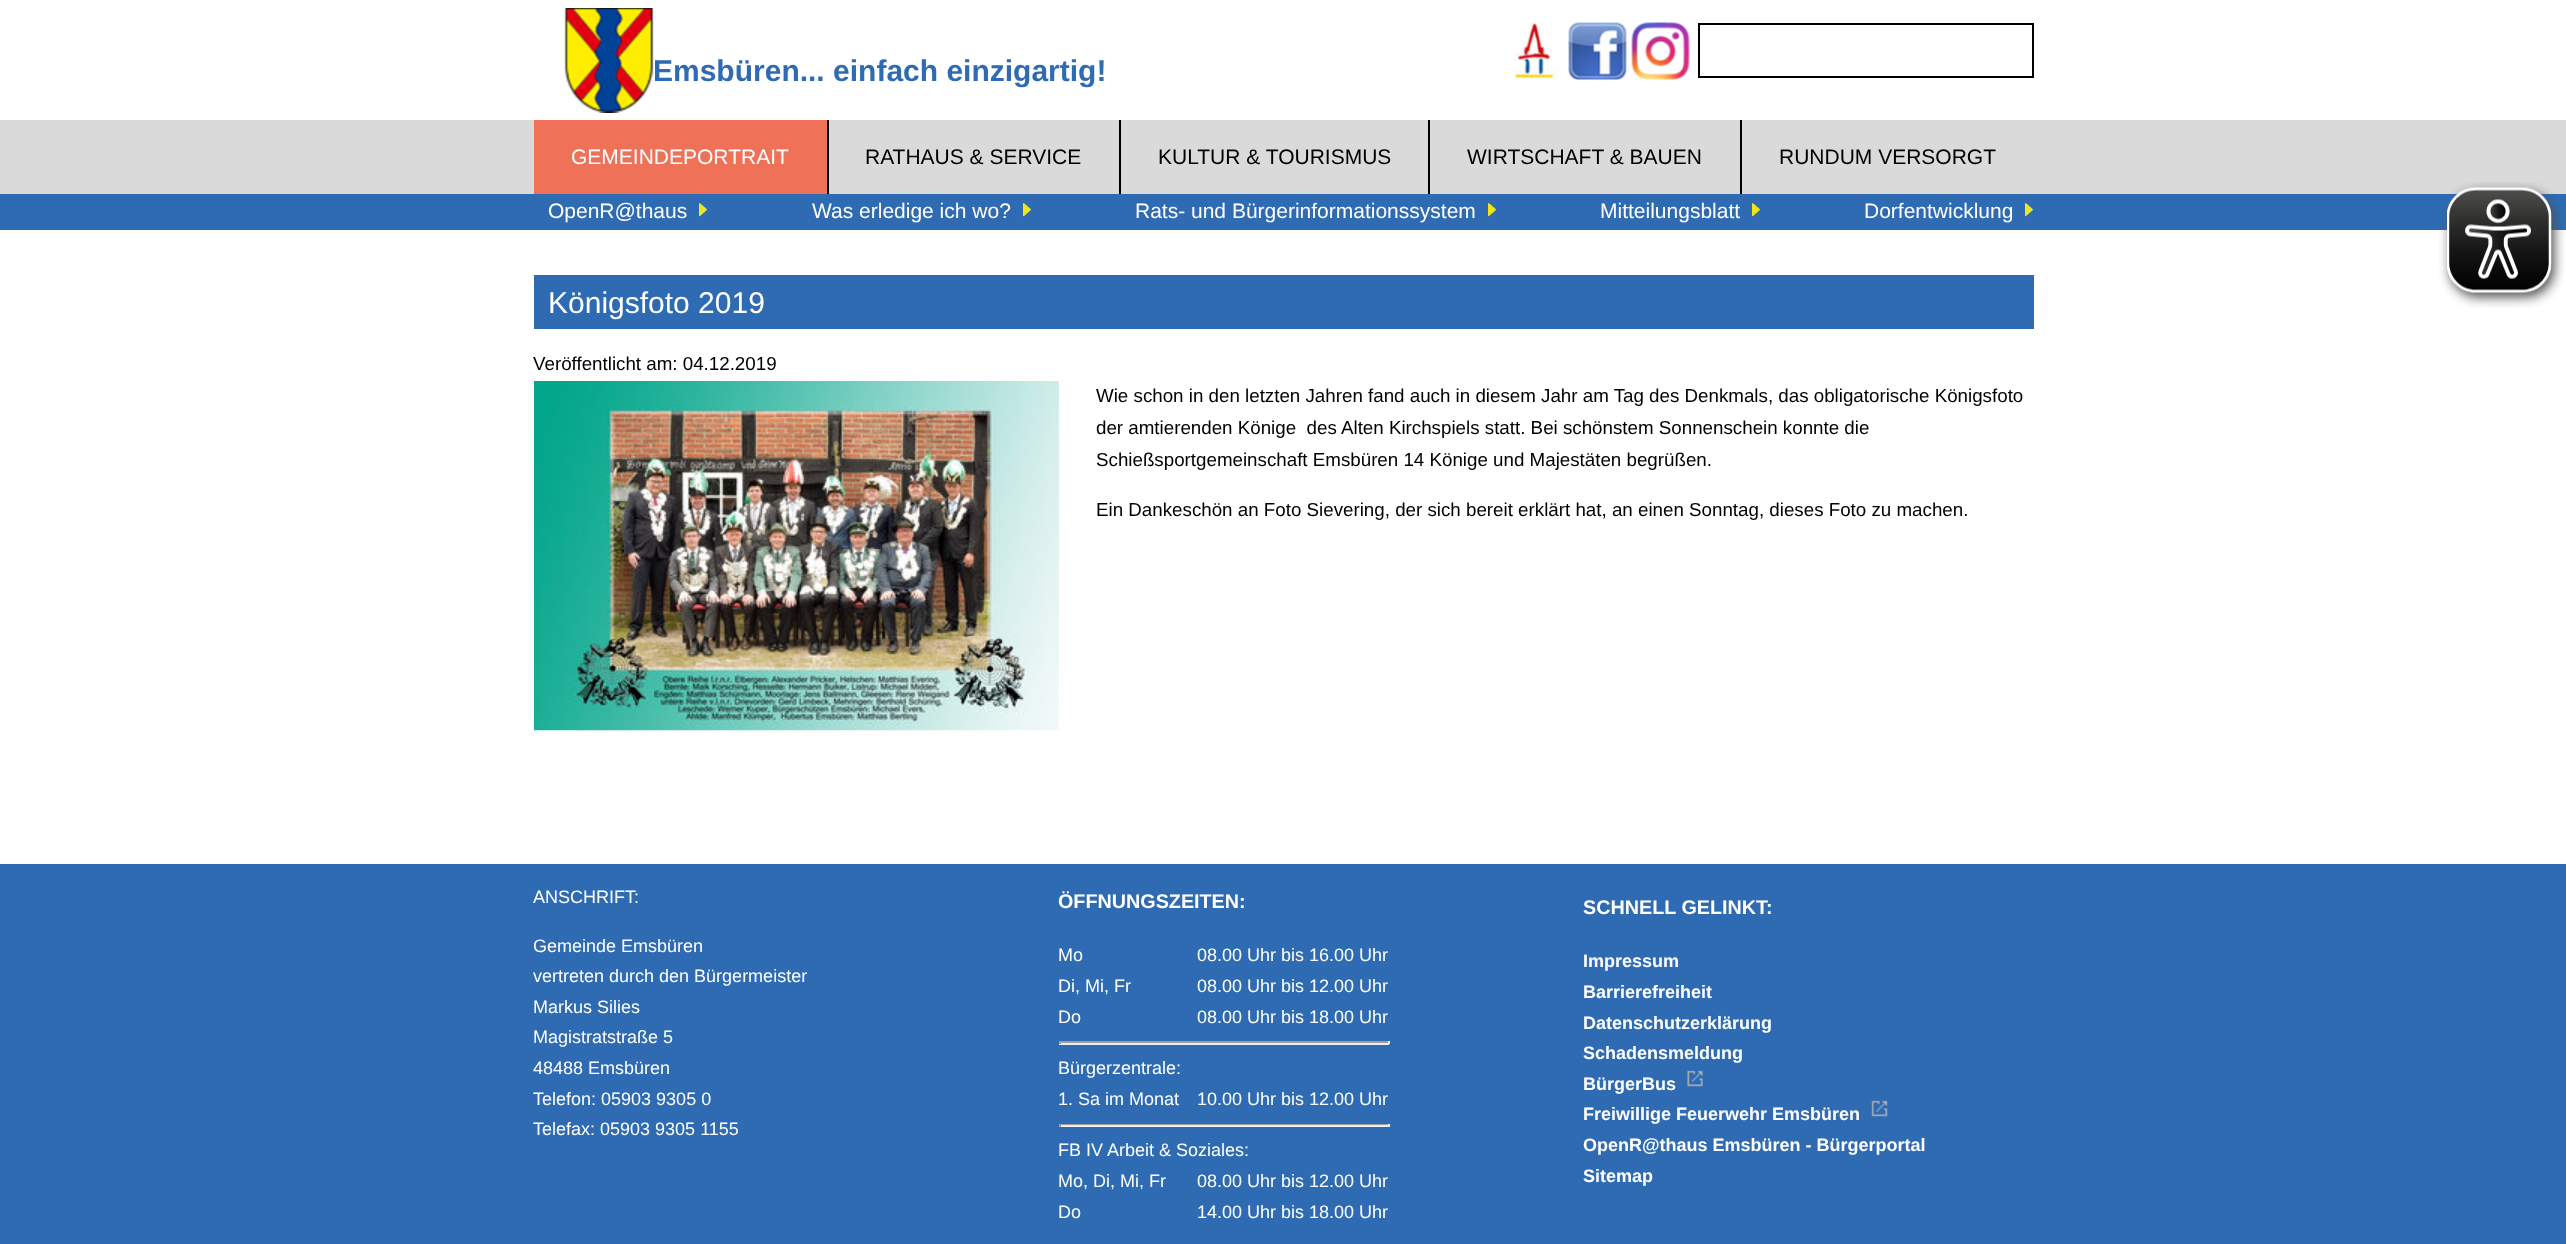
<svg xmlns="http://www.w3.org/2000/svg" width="2566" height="1244">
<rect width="100%" height="100%" fill="#fff"/>
<image x="564" y="8" width="90" height="105" href="media/1.png"/>
<text x="653" y="81" style="font-family:Liberation Sans;font-size:30px;font-weight:bold;fill:#2e6bb3">Emsbüren... einfach einzigartig!</text>
<image x="1513" y="22" width="46" height="58" href="media/2.png"/>
<image x="1568" y="22" width="59" height="58" href="media/3.png"/>
<image x="1631" y="22" width="59" height="58" href="media/4.png"/>
<rect x="1699" y="24" width="334" height="53" fill="none" stroke="#000" stroke-width="2"/>
<rect y="120" width="2566" height="74" fill="#dadada"/>
<rect x="534" y="120" width="293" height="74" fill="#ee7158"/>
<text x="571" y="164" style="font-family:Liberation Sans;font-size:21px;fill:#fff">GEMEINDEPORTRAIT</text>
<rect x="827" y="120" width="2" height="74" fill="#000"/>
<text x="865" y="164" style="font-family:Liberation Sans;font-size:21px;fill:#000">RATHAUS &amp; SERVICE</text>
<rect x="1119" y="120" width="2" height="74" fill="#000"/>
<text x="1158" y="164" style="font-family:Liberation Sans;font-size:21px;fill:#000">KULTUR &amp; TOURISMUS</text>
<rect x="1428" y="120" width="2" height="74" fill="#000"/>
<text x="1467" y="164" style="font-family:Liberation Sans;font-size:21px;fill:#000">WIRTSCHAFT &amp; BAUEN</text>
<rect x="1740" y="120" width="2" height="74" fill="#000"/>
<text x="1779" y="164" style="font-family:Liberation Sans;font-size:21px;fill:#000">RUNDUM VERSORGT</text>
<rect y="194" width="2566" height="36" fill="#2e6bb3"/>
<text x="548" y="218" style="font-family:Liberation Sans;font-size:21px;fill:#fff">OpenR@thaus</text>
<image x="699" y="203" width="8" height="14" href="media/5.png"/>
<text x="812" y="218" style="font-family:Liberation Sans;font-size:21px;fill:#fff">Was erledige ich wo?</text>
<image x="1023" y="203" width="8" height="14" href="media/5.png"/>
<text x="1135" y="218" style="font-family:Liberation Sans;font-size:21px;fill:#fff">Rats- und Bürgerinformationssystem</text>
<image x="1488" y="203" width="8" height="14" href="media/5.png"/>
<text x="1600" y="218" style="font-family:Liberation Sans;font-size:21px;fill:#fff">Mitteilungsblatt</text>
<image x="1752" y="203" width="8" height="14" href="media/5.png"/>
<text x="1864" y="218" style="font-family:Liberation Sans;font-size:21px;fill:#fff">Dorfentwicklung</text>
<image x="2025" y="203" width="8" height="14" href="media/5.png"/>
<rect x="534" y="275" width="1500" height="54" fill="#2e6bb3"/>
<text x="548" y="313" style="font-family:Liberation Sans;font-size:30px;fill:#fff">Königsfoto 2019</text>
<text x="533" y="370" style="font-family:Liberation Sans;font-size:18.75px;fill:#000">Veröffentlicht am: 04.12.2019</text>
<image x="534" y="381" width="525" height="350" href="media/6.png"/>
<text x="1096" y="402" style="font-family:Liberation Sans;font-size:18.75px;fill:#000">Wie schon in den letzten Jahren fand auch in diesem Jahr am Tag des Denkmals, das obligatorische Königsfoto</text>
<text x="1096" y="434" style="font-family:Liberation Sans;font-size:18.75px;fill:#000" xml:space="preserve">der amtierenden Könige  des Alten Kirchspiels statt. Bei schönstem Sonnenschein konnte die</text>
<text x="1096" y="466" style="font-family:Liberation Sans;font-size:18.75px;fill:#000">Schießsportgemeinschaft Emsbüren 14 Könige und Majestäten begrüßen.</text>
<text x="1096" y="516" style="font-family:Liberation Sans;font-size:18.75px;fill:#000">Ein Dankeschön an Foto Sievering, der sich bereit erklärt hat, an einen Sonntag, dieses Foto zu machen.</text>
<rect y="864" width="2566" height="380" fill="#2e6bb3"/>
<text x="533" y="903" style="font-family:Liberation Sans;font-size:18px;fill:#fff">ANSCHRIFT:</text>
<text x="533" y="952" style="font-family:Liberation Sans;font-size:18px;fill:#fff">Gemeinde Emsbüren</text>
<text x="533" y="982" style="font-family:Liberation Sans;font-size:18px;fill:#fff">vertreten durch den Bürgermeister</text>
<text x="533" y="1013" style="font-family:Liberation Sans;font-size:18px;fill:#fff">Markus Silies</text>
<text x="533" y="1043" style="font-family:Liberation Sans;font-size:18px;fill:#fff">Magistratstraße 5</text>
<text x="533" y="1074" style="font-family:Liberation Sans;font-size:18px;fill:#fff">48488 Emsbüren</text>
<text x="533" y="1105" style="font-family:Liberation Sans;font-size:18px;fill:#fff">Telefon: 05903 9305 0</text>
<text x="533" y="1135" style="font-family:Liberation Sans;font-size:18px;fill:#fff">Telefax: 05903 9305 1155</text>
<text x="1058" y="908" style="font-family:Liberation Sans;font-size:19.75px;font-weight:bold;fill:#fff">ÖFFNUNGSZEITEN:</text>
<text x="1058" y="961" style="font-family:Liberation Sans;font-size:18px;fill:#fff">Mo</text>
<text x="1197" y="961" style="font-family:Liberation Sans;font-size:18px;fill:#fff">08.00 Uhr bis 16.00 Uhr</text>
<text x="1058" y="992" style="font-family:Liberation Sans;font-size:18px;fill:#fff">Di, Mi, Fr</text>
<text x="1197" y="992" style="font-family:Liberation Sans;font-size:18px;fill:#fff">08.00 Uhr bis 12.00 Uhr</text>
<text x="1058" y="1023" style="font-family:Liberation Sans;font-size:18px;fill:#fff">Do</text>
<text x="1197" y="1023" style="font-family:Liberation Sans;font-size:18px;fill:#fff">08.00 Uhr bis 18.00 Uhr</text>
<rect x="1059" y="1041" width="330" height="2" fill="#9f9f9f"/>
<rect x="1388" y="1041" width="2" height="3" fill="#eee"/>
<rect x="1059" y="1043" width="330" height="2" fill="#eee"/>
<rect x="1059" y="1041" width="2" height="3" fill="#9f9f9f"/>
<text x="1058" y="1074" style="font-family:Liberation Sans;font-size:18px;fill:#fff">Bürgerzentrale:</text>
<text x="1058" y="1105" style="font-family:Liberation Sans;font-size:18px;fill:#fff">1. Sa im Monat</text>
<text x="1197" y="1105" style="font-family:Liberation Sans;font-size:18px;fill:#fff">10.00 Uhr bis 12.00 Uhr</text>
<rect x="1059" y="1124" width="330" height="1" fill="#9f9f9f"/>
<rect x="1388" y="1124" width="2" height="3" fill="#eee"/>
<rect x="1059" y="1125" width="330" height="2" fill="#eee"/>
<rect x="1059" y="1124" width="2" height="3" fill="#9f9f9f"/>
<text x="1058" y="1156" style="font-family:Liberation Sans;font-size:18px;fill:#fff">FB IV Arbeit &amp; Soziales:</text>
<text x="1058" y="1187" style="font-family:Liberation Sans;font-size:18px;fill:#fff">Mo, Di, Mi, Fr</text>
<text x="1197" y="1187" style="font-family:Liberation Sans;font-size:18px;fill:#fff">08.00 Uhr bis 12.00 Uhr</text>
<text x="1058" y="1218" style="font-family:Liberation Sans;font-size:18px;fill:#fff">Do</text>
<text x="1197" y="1218" style="font-family:Liberation Sans;font-size:18px;fill:#fff">14.00 Uhr bis 18.00 Uhr</text>
<text x="1583" y="914" style="font-family:Liberation Sans;font-size:19.75px;font-weight:bold;fill:#fff">SCHNELL GELINKT:</text>
<text x="1583" y="967" style="font-family:Liberation Sans;font-size:18px;font-weight:bold;fill:#fff">Impressum</text>
<text x="1583" y="998" style="font-family:Liberation Sans;font-size:18px;font-weight:bold;fill:#fff">Barrierefreiheit</text>
<text x="1583" y="1029" style="font-family:Liberation Sans;font-size:18px;font-weight:bold;fill:#fff">Datenschutzerklärung</text>
<text x="1583" y="1059" style="font-family:Liberation Sans;font-size:18px;font-weight:bold;fill:#fff">Schadensmeldung</text>
<text x="1583" y="1090" style="font-family:Liberation Sans;font-size:18px;font-weight:bold;fill:#fff">BürgerBus</text>
<image x="1687" y="1070" width="16" height="17" href="media/7.png"/>
<text x="1583" y="1120" style="font-family:Liberation Sans;font-size:18px;font-weight:bold;fill:#fff">Freiwillige Feuerwehr Emsbüren</text>
<image x="1871" y="1100" width="17" height="17" href="media/8.png"/>
<text x="1583" y="1151" style="font-family:Liberation Sans;font-size:18px;font-weight:bold;fill:#fff">OpenR@thaus Emsbüren - Bürgerportal</text>
<text x="1583" y="1182" style="font-family:Liberation Sans;font-size:18px;font-weight:bold;fill:#fff">Sitemap</text>
<image x="2439" y="182" width="126" height="126" href="media/9.png"/>
</svg>
